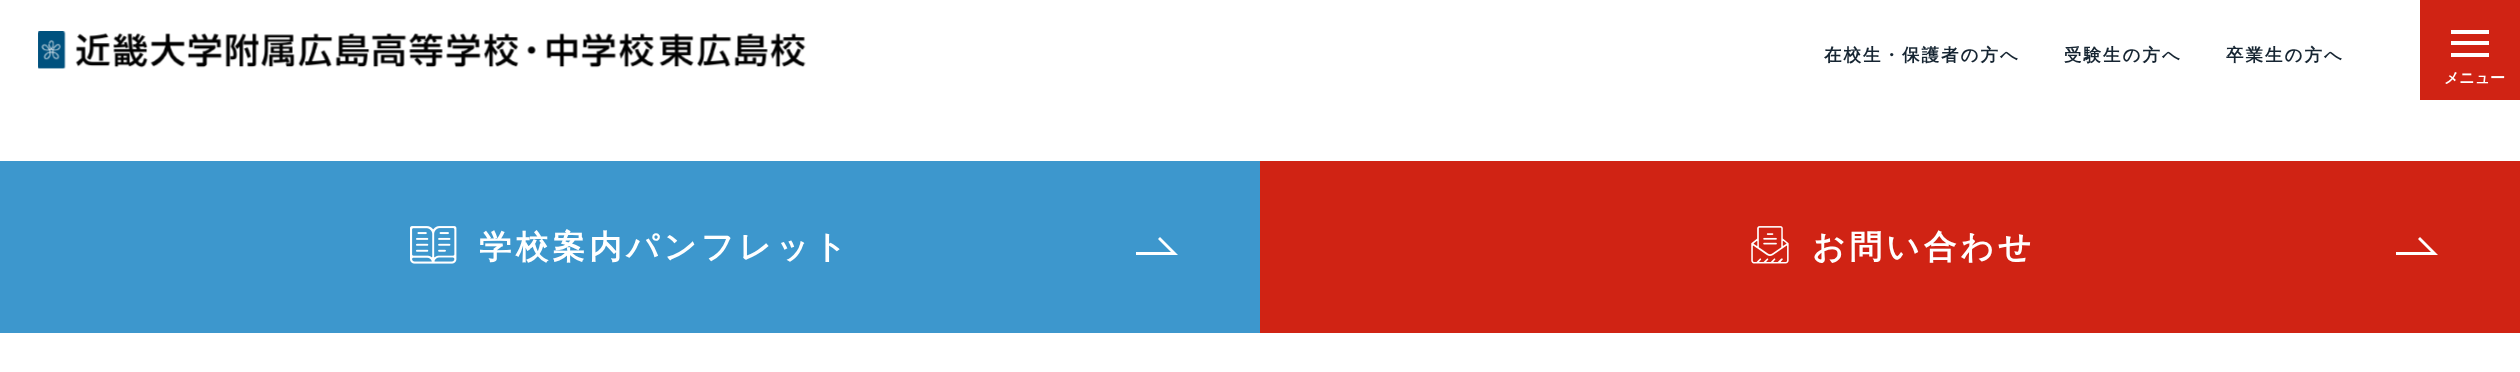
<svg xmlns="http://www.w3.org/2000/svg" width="2520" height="372">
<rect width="100%" height="100%" fill="#fff"/>
<image x="38" y="31" width="768" height="38" href="media/1.png"/>
<text x="1824" y="61" style="font-family:WenQuanYi Zen Hei;font-size:17.5px;font-weight:bold;letter-spacing:2px;fill:#162532">在校生・保護者の方へ</text>
<text x="2064" y="61" style="font-family:WenQuanYi Zen Hei;font-size:17.5px;font-weight:bold;letter-spacing:2px;fill:#162532">受験生の方へ</text>
<text x="2226" y="61" style="font-family:WenQuanYi Zen Hei;font-size:17.5px;font-weight:bold;letter-spacing:2px;fill:#162532">卒業生の方へ</text>
<rect y="161" width="1260" height="172" fill="#3d97cd"/>
<image x="410" y="226" width="47" height="38" href="media/2.png"/>
<text x="479" y="258" style="font-family:WenQuanYi Zen Hei;font-size:32.5px;font-weight:bold;letter-spacing:4.25px;fill:#fff">学校案内パンフレット</text>
<path d="M1178 255h-42v-3h35l-13-13l2-2z" fill="#fff"/>
<rect x="1260" y="161" width="1260" height="172" fill="#d02314"/>
<image x="1751" y="226" width="38" height="38" href="media/3.png"/>
<text x="1812" y="258" style="font-family:WenQuanYi Zen Hei;font-size:32.5px;font-weight:bold;letter-spacing:4.25px;fill:#fff">お問い合わせ</text>
<path d="M2438 255h-42v-3h35l-13-13l2-2z" fill="#fff"/>
<rect x="2420" width="100" height="100" fill="#d02314"/>
<rect x="2451" y="41" width="38" height="4" fill="#fff"/>
<rect x="2451" y="30" width="38" height="4" fill="#fff"/>
<rect x="2451" y="53" width="38" height="4" fill="#fff"/>
<text x="2444" y="83" style="font-family:WenQuanYi Zen Hei;font-size:15px;font-weight:bold;fill:#fff">メニュー</text>
</svg>
